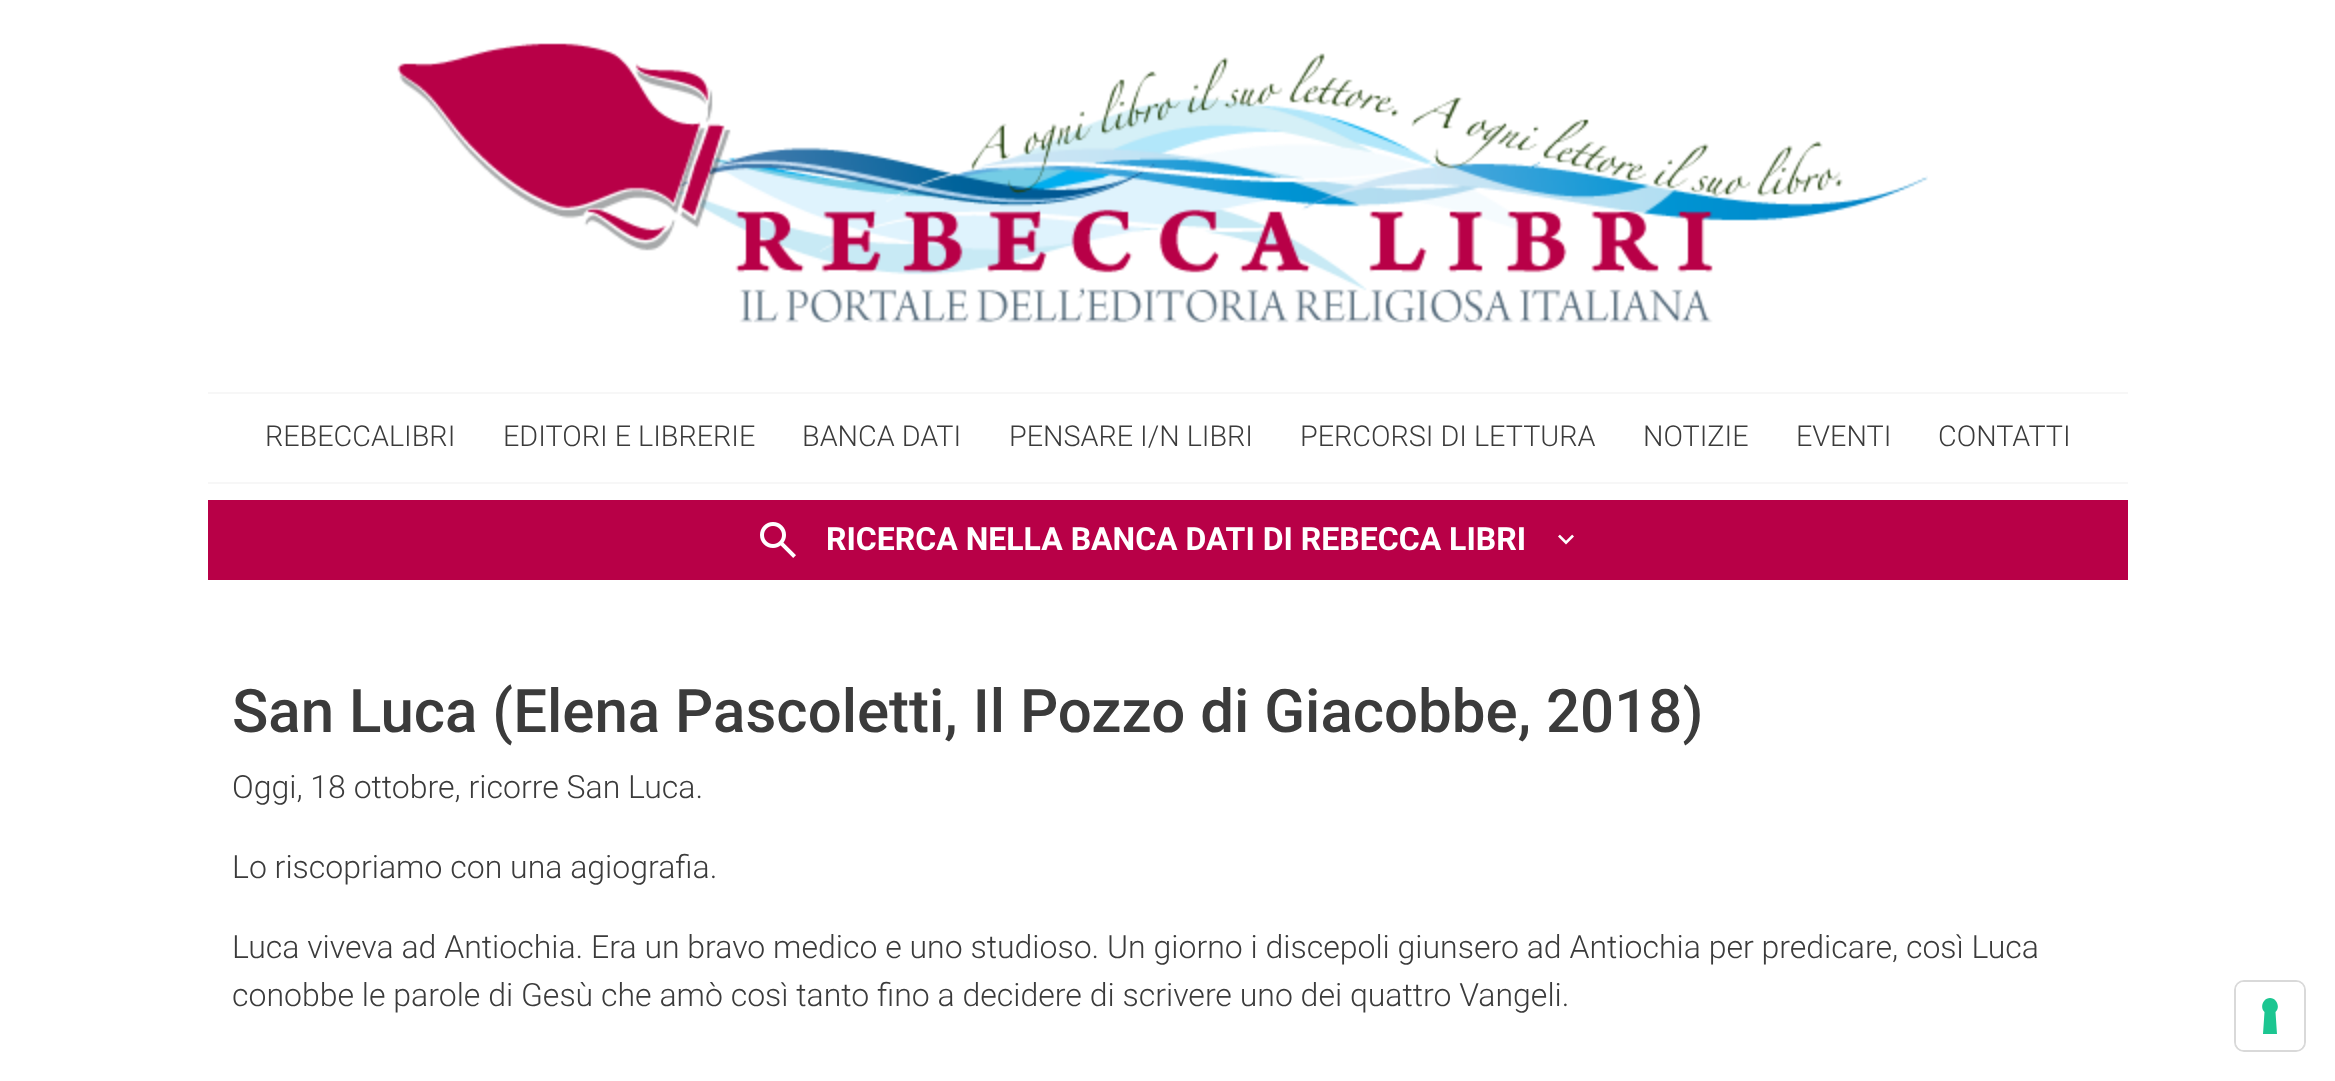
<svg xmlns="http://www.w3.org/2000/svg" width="2335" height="1081">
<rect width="100%" height="100%" fill="#fff"/>
<image x="397" y="43" width="1531" height="280" href="media/1.png"/>
<rect x="208" y="392" width="1920" height="2" fill="#f7f7f7"/>
<rect x="208" y="482" width="1920" height="2" fill="#f7f7f7"/>
<text x="265" y="446" style="font-family:Roboto;font-size:28.75px;font-weight:300;fill:#3b3b3b">REBECCALIBRI</text>
<text x="503" y="446" style="font-family:Roboto;font-size:28.75px;font-weight:300;fill:#3b3b3b">EDITORI E LIBRERIE</text>
<text x="802" y="446" style="font-family:Roboto;font-size:28.75px;font-weight:300;fill:#3b3b3b">BANCA DATI</text>
<text x="1009" y="446" style="font-family:Roboto;font-size:28.75px;font-weight:300;fill:#3b3b3b">PENSARE I/N LIBRI</text>
<text x="1300" y="446" style="font-family:Roboto;font-size:28.75px;font-weight:300;fill:#3b3b3b">PERCORSI DI LETTURA</text>
<text x="1643" y="446" style="font-family:Roboto;font-size:28.75px;font-weight:300;fill:#3b3b3b">NOTIZIE</text>
<text x="1796" y="446" style="font-family:Roboto;font-size:28.75px;font-weight:300;fill:#3b3b3b">EVENTI</text>
<text x="1938" y="446" style="font-family:Roboto;font-size:28.75px;font-weight:300;fill:#3b3b3b">CONTATTI</text>
<rect x="208" y="500" width="1920" height="80" fill="#b80047"/>
<image x="760" y="522" width="36" height="36" href="media/2.png"/>
<text x="826" y="550" style="font-family:Roboto;font-size:32px;font-weight:bold;fill:#fff">RICERCA NELLA BANCA DATI DI REBECCA LIBRI</text>
<image x="1558" y="534" width="16" height="11" href="media/3.png"/>
<text x="232" y="732" style="font-family:Roboto;font-size:60px;font-weight:500;fill:#3b3b3b">San Luca (Elena Pascoletti, Il Pozzo di Giacobbe, 2018)</text>
<text x="232" y="798" style="font-family:Roboto;font-size:32px;font-weight:300;fill:#3b3b3b">Oggi, 18 ottobre, ricorre San Luca.</text>
<text x="232" y="878" style="font-family:Roboto;font-size:32px;font-weight:300;fill:#3b3b3b">Lo riscopriamo con una agiografia.</text>
<text x="232" y="958" style="font-family:Roboto;font-size:32px;font-weight:300;fill:#3b3b3b">Luca viveva ad Antiochia. Era un bravo medico e uno studioso. Un giorno i discepoli giunsero ad Antiochia per predicare, così Luca</text>
<text x="232" y="1006" style="font-family:Roboto;font-size:32px;font-weight:300;fill:#3b3b3b">conobbe le parole di Gesù che amò così tanto fino a decidere di scrivere uno dei quattro Vangeli.</text>
<rect x="2235" y="981" width="70" height="70" rx="9" fill="none" stroke="#d9d9d9" stroke-width="2"/>
<rect x="2236" y="982" width="68" height="68" rx="8" fill="#fff"/>
<path d="M2270 998c7 0 10.5 9.5 5.5 14l1.5 22h-14l1.5-22c-5-4.5-1.5-14 5.5-14z" fill="#1cc691" fill-rule="evenodd"/>
</svg>
